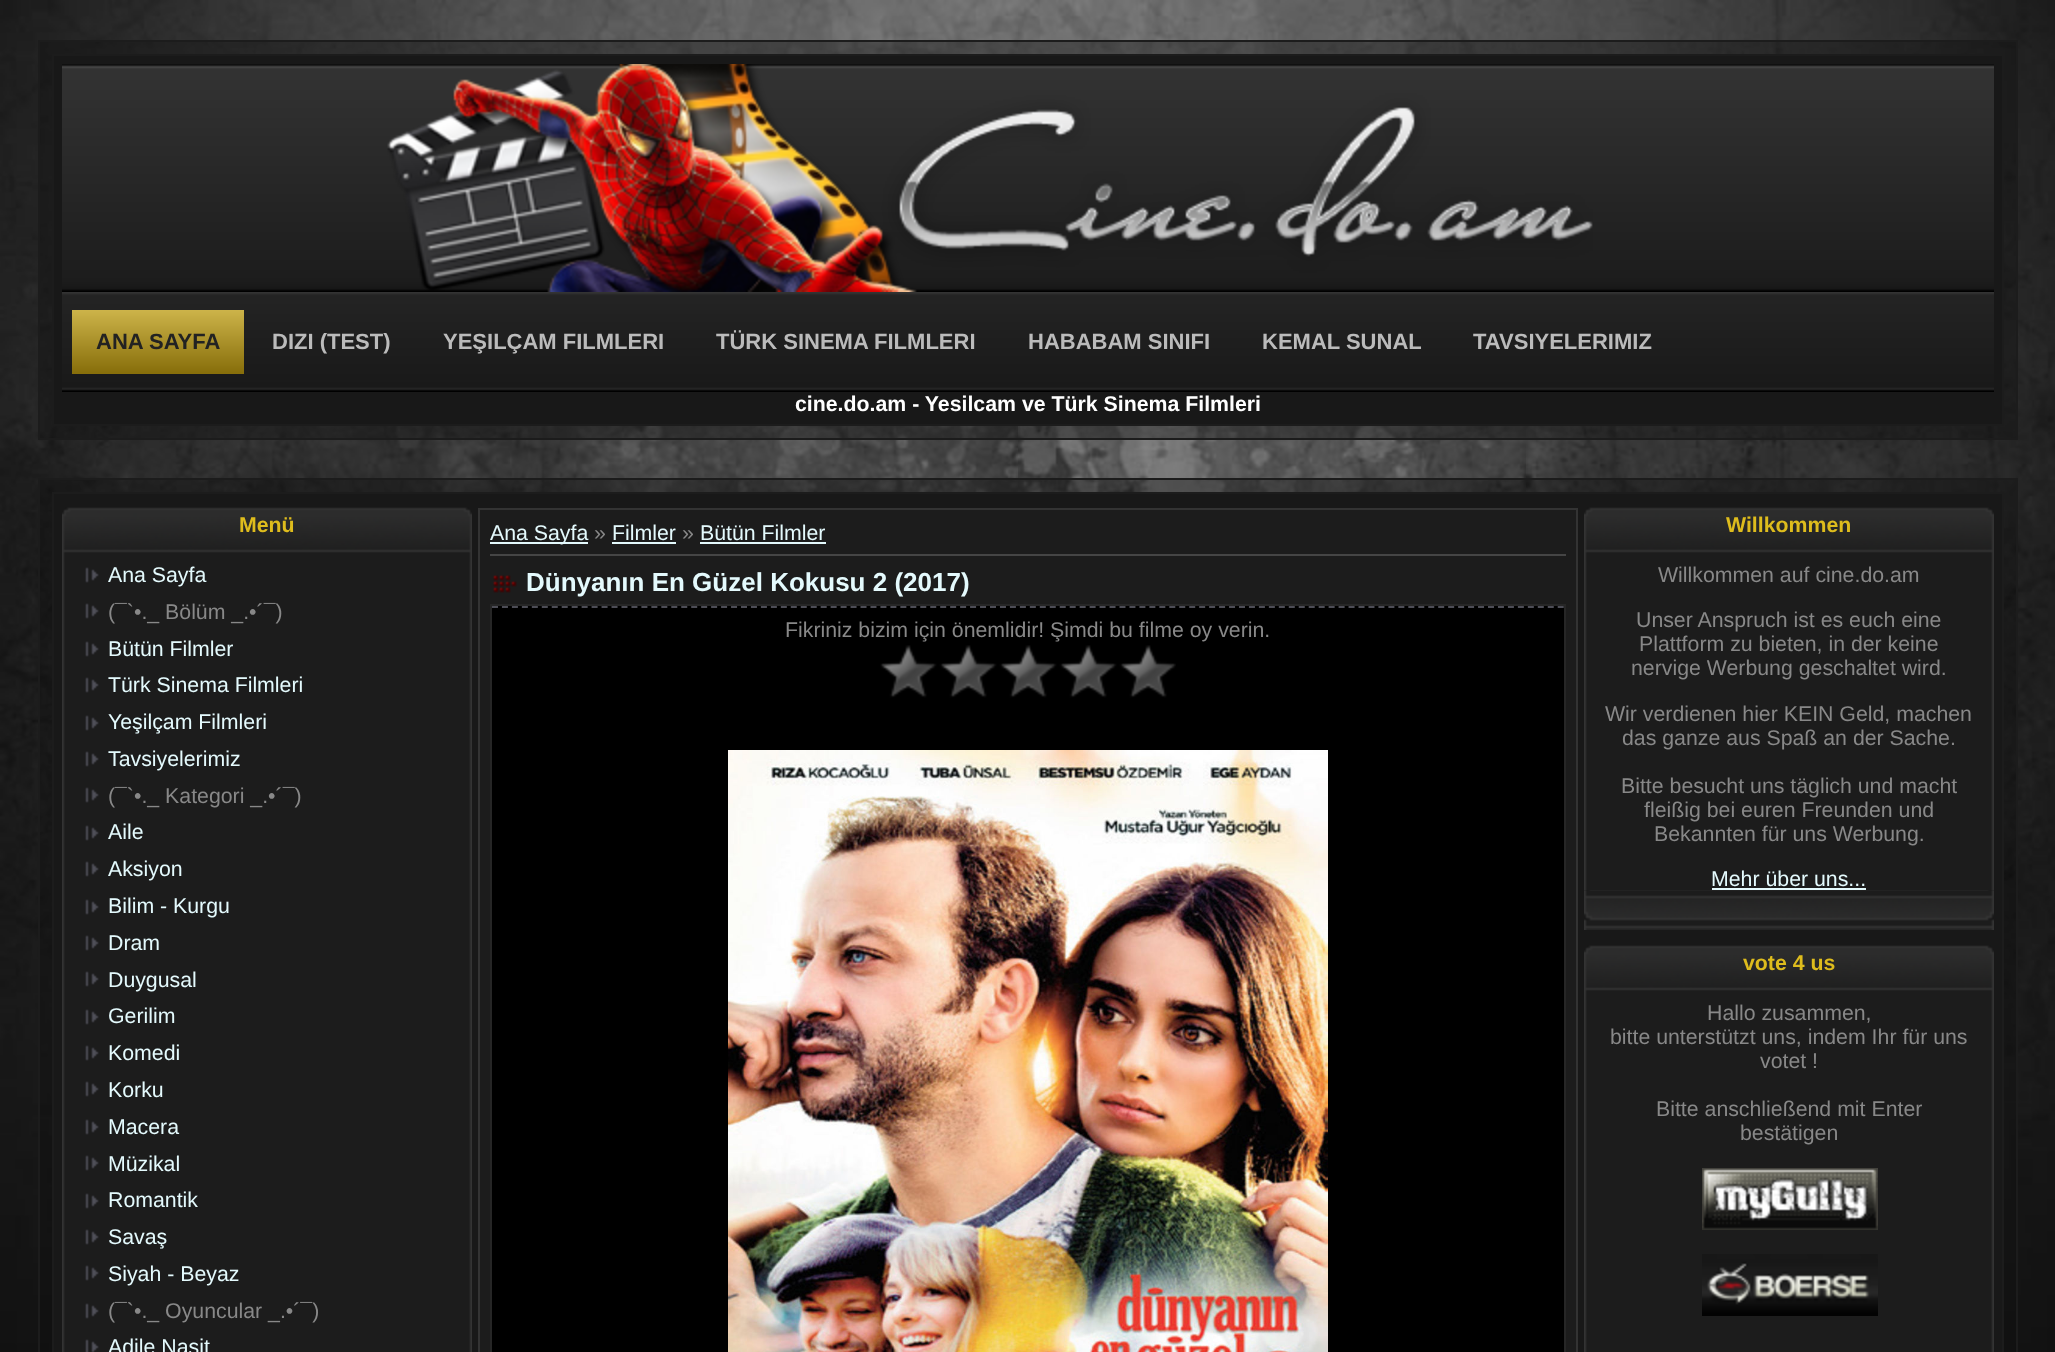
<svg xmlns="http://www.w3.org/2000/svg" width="2055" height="1352">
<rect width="100%" height="100%" fill="#fff"/>
<image x="0" y="0" width="2055" height="1352" href="media/1.png"/>
<rect x="39" y="41" width="1978" height="398" fill="#0f0f0f66" stroke="#1c1c1c" stroke-width="2"/>
<rect x="53" y="55" width="1950" height="370" fill="#181818" stroke="#1c1c1c" stroke-width="2"/>
<image x="62" y="64" width="1932" height="228" href="media/2.png"/>
<image x="387" y="64" width="1206" height="228" href="media/3.png"/>
<image x="62" y="292" width="1932" height="100" href="media/4.png"/>
<image x="72" y="310" width="172" height="64" href="media/5.png"/>
<text x="96" y="349" style="font-family:Liberation Sans;font-size:22px;font-weight:bold;fill:#222">ANA SAYFA</text>
<text x="272" y="349" style="font-family:Liberation Sans;font-size:22px;font-weight:bold;fill:#bbb">DIZI (TEST)</text>
<text x="443" y="349" style="font-family:Liberation Sans;font-size:22px;font-weight:bold;fill:#bbb">YEŞILÇAM FILMLERI</text>
<text x="716" y="349" style="font-family:Liberation Sans;font-size:22px;font-weight:bold;fill:#bbb">TÜRK SINEMA FILMLERI</text>
<text x="1028" y="349" style="font-family:Liberation Sans;font-size:22px;font-weight:bold;fill:#bbb">HABABAM SINIFI</text>
<text x="1262" y="349" style="font-family:Liberation Sans;font-size:22px;font-weight:bold;fill:#bbb">KEMAL SUNAL</text>
<text x="1473" y="349" style="font-family:Liberation Sans;font-size:22px;font-weight:bold;fill:#bbb">TAVSIYELERIMIZ</text>
<text x="795" y="411" style="font-family:Liberation Sans;font-size:21.3px;font-weight:bold;fill:#fff">cine.do.am - Yesilcam ve Türk Sinema Filmleri</text>
<rect x="39" y="479" width="1978" height="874" fill="#0f0f0f66" stroke="#1c1c1c" stroke-width="2"/>
<rect x="53" y="493" width="1950" height="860" fill="#181818" stroke="#1c1c1c" stroke-width="2"/>
<image x="62" y="507" width="410" height="55" href="media/6.png"/>
<text x="239" y="532" style="font-family:Liberation Sans;font-size:21.3px;font-weight:bold;fill:#debc1d">Menü</text>
<image x="62" y="562" width="410" height="790" href="media/7.png"/>
<image x="85" y="567" width="14" height="16" href="media/8.png"/>
<text x="108" y="582" style="font-family:Liberation Sans;font-size:21.3px;fill:#e4fafd">Ana Sayfa</text>
<image x="85" y="603" width="14" height="16" href="media/8.png"/>
<text x="108" y="619" style="font-family:Liberation Sans;font-size:21.3px;fill:#888">(¯`•._ Bölüm _.•´¯)</text>
<image x="85" y="641" width="14" height="16" href="media/8.png"/>
<text x="108" y="656" style="font-family:Liberation Sans;font-size:21.3px;fill:#e4fafd">Bütün Filmler</text>
<image x="85" y="677" width="14" height="16" href="media/8.png"/>
<text x="108" y="692" style="font-family:Liberation Sans;font-size:21.3px;fill:#e4fafd">Türk Sinema Filmleri</text>
<image x="85" y="715" width="14" height="16" href="media/8.png"/>
<text x="108" y="729" style="font-family:Liberation Sans;font-size:21.3px;fill:#e4fafd">Yeşilçam Filmleri</text>
<image x="85" y="751" width="14" height="16" href="media/8.png"/>
<text x="108" y="766" style="font-family:Liberation Sans;font-size:21.3px;fill:#e4fafd">Tavsiyelerimiz</text>
<image x="85" y="787" width="14" height="16" href="media/8.png"/>
<text x="108" y="803" style="font-family:Liberation Sans;font-size:21.3px;fill:#888">(¯`•._ Kategori _.•´¯)</text>
<image x="85" y="825" width="14" height="16" href="media/8.png"/>
<text x="108" y="839" style="font-family:Liberation Sans;font-size:21.3px;fill:#e4fafd">Aile</text>
<image x="85" y="861" width="14" height="16" href="media/8.png"/>
<text x="108" y="876" style="font-family:Liberation Sans;font-size:21.3px;fill:#e4fafd">Aksiyon</text>
<image x="85" y="899" width="14" height="16" href="media/8.png"/>
<text x="108" y="913" style="font-family:Liberation Sans;font-size:21.3px;fill:#e4fafd">Bilim - Kurgu</text>
<image x="85" y="935" width="14" height="16" href="media/8.png"/>
<text x="108" y="950" style="font-family:Liberation Sans;font-size:21.3px;fill:#e4fafd">Dram</text>
<image x="85" y="971" width="14" height="16" href="media/8.png"/>
<text x="108" y="987" style="font-family:Liberation Sans;font-size:21.3px;fill:#e4fafd">Duygusal</text>
<image x="85" y="1009" width="14" height="16" href="media/8.png"/>
<text x="108" y="1023" style="font-family:Liberation Sans;font-size:21.3px;fill:#e4fafd">Gerilim</text>
<image x="85" y="1045" width="14" height="16" href="media/8.png"/>
<text x="108" y="1060" style="font-family:Liberation Sans;font-size:21.3px;fill:#e4fafd">Komedi</text>
<image x="85" y="1081" width="14" height="16" href="media/8.png"/>
<text x="108" y="1097" style="font-family:Liberation Sans;font-size:21.3px;fill:#e4fafd">Korku</text>
<image x="85" y="1119" width="14" height="16" href="media/8.png"/>
<text x="108" y="1134" style="font-family:Liberation Sans;font-size:21.3px;fill:#e4fafd">Macera</text>
<image x="85" y="1155" width="14" height="16" href="media/8.png"/>
<text x="108" y="1171" style="font-family:Liberation Sans;font-size:21.3px;fill:#e4fafd">Müzikal</text>
<image x="85" y="1193" width="14" height="16" href="media/8.png"/>
<text x="108" y="1207" style="font-family:Liberation Sans;font-size:21.3px;fill:#e4fafd">Romantik</text>
<image x="85" y="1229" width="14" height="16" href="media/8.png"/>
<text x="108" y="1244" style="font-family:Liberation Sans;font-size:21.3px;fill:#e4fafd">Savaş</text>
<image x="85" y="1265" width="14" height="16" href="media/8.png"/>
<text x="108" y="1281" style="font-family:Liberation Sans;font-size:21.3px;fill:#e4fafd">Siyah - Beyaz</text>
<image x="85" y="1303" width="14" height="16" href="media/8.png"/>
<text x="108" y="1318" style="font-family:Liberation Sans;font-size:21.3px;fill:#888">(¯`•._ Oyuncular _.•´¯)</text>
<image x="85" y="1339" width="14" height="13" href="media/9.png"/>
<text x="108" y="1354" style="font-family:Liberation Sans;font-size:21.3px;fill:#e4fafd">Adile Naşit</text>
<rect x="479" y="509" width="1098" height="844" fill="none" stroke="#333" stroke-width="2"/>
<rect x="480" y="510" width="1096" height="842" fill="#1c1c1c"/>
<rect x="490" y="542" width="98" height="2" fill="#e4fafd"/>
<text x="490" y="540" style="font-family:Liberation Sans;font-size:21.3px;fill:#e4fafd">Ana Sayfa</text>
<text x="594" y="540" style="font-family:Liberation Sans;font-size:21.3px;fill:#888">»</text>
<text x="612" y="540" style="font-family:Liberation Sans;font-size:21.3px;fill:#e4fafd">Filmler</text>
<rect x="612" y="542" width="64" height="2" fill="#e4fafd"/>
<text x="682" y="540" style="font-family:Liberation Sans;font-size:21.3px;fill:#888">»</text>
<text x="700" y="540" style="font-family:Liberation Sans;font-size:21.3px;fill:#e4fafd">Bütün Filmler</text>
<rect x="700" y="542" width="126" height="2" fill="#e4fafd"/>
<rect x="490" y="554" width="1076" height="2" fill="#454545"/>
<image x="493" y="575" width="24" height="18" href="media/10.png"/>
<text x="526" y="591" style="font-family:Liberation Sans;font-size:26px;font-weight:bold;fill:#e4fafd">Dünyanın En Güzel Kokusu 2 (2017)</text>
<rect x="491" y="605" width="1074" height="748" fill="#000" stroke="#262626" stroke-width="2"/>
<path d="M492 607h1072" fill="none" stroke="#4d4d56" stroke-width="2" stroke-dasharray="6 3.96"/>
<text x="785" y="637" style="font-family:Liberation Sans;font-size:21.3px;fill:#888">Fikriniz bizim için önemlidir! Şimdi bu filme oy verin.</text>
<image x="880" y="645" width="296" height="53" href="media/11.png"/>
<image x="728" y="750" width="600" height="602" href="media/12.png"/>
<image x="1584" y="507" width="410" height="55" href="media/6.png"/>
<text x="1726" y="532" style="font-family:Liberation Sans;font-size:21.3px;font-weight:bold;fill:#debc1d">Willkommen</text>
<image x="1584" y="562" width="410" height="328" href="media/13.png"/>
<text x="1658" y="582" style="font-family:Liberation Sans;font-size:21.3px;fill:#888">Willkommen auf cine.do.am</text>
<text x="1636" y="627" style="font-family:Liberation Sans;font-size:21.3px;fill:#888">Unser Anspruch ist es euch eine</text>
<text x="1639" y="651" style="font-family:Liberation Sans;font-size:21.3px;fill:#888">Plattform zu bieten, in der keine</text>
<text x="1631" y="675" style="font-family:Liberation Sans;font-size:21.3px;fill:#888">nervige Werbung geschaltet wird.</text>
<text x="1605" y="721" style="font-family:Liberation Sans;font-size:21.3px;fill:#888">Wir verdienen hier KEIN Geld, machen</text>
<text x="1622" y="745" style="font-family:Liberation Sans;font-size:21.3px;fill:#888">das ganze aus Spaß an der Sache.</text>
<text x="1621" y="793" style="font-family:Liberation Sans;font-size:21.3px;fill:#888">Bitte besucht uns täglich und macht</text>
<text x="1644" y="817" style="font-family:Liberation Sans;font-size:21.3px;fill:#888">fleißig bei euren Freunden und</text>
<text x="1654" y="841" style="font-family:Liberation Sans;font-size:21.3px;fill:#888">Bekannten für uns Werbung.</text>
<text x="1711" y="886" style="font-family:Liberation Sans;font-size:21.3px;fill:#e4fafd">Mehr über uns...</text>
<rect x="1712" y="888" width="154" height="2" fill="#e4fafd"/>
<image x="1584" y="890" width="410" height="40" href="media/14.png"/>
<image x="1584" y="945" width="410" height="55" href="media/6.png"/>
<text x="1743" y="970" style="font-family:Liberation Sans;font-size:21.3px;font-weight:bold;fill:#debc1d">vote 4 us</text>
<image x="1584" y="1000" width="410" height="352" href="media/15.png"/>
<text x="1707" y="1020" style="font-family:Liberation Sans;font-size:21.3px;fill:#888">Hallo zusammen,</text>
<text x="1610" y="1044" style="font-family:Liberation Sans;font-size:21.3px;fill:#888">bitte unterstützt uns, indem Ihr für uns</text>
<text x="1760" y="1068" style="font-family:Liberation Sans;font-size:21.3px;fill:#888">votet !</text>
<text x="1656" y="1116" style="font-family:Liberation Sans;font-size:21.3px;fill:#888">Bitte anschließend mit Enter</text>
<text x="1740" y="1140" style="font-family:Liberation Sans;font-size:21.3px;fill:#888">bestätigen</text>
<image x="1702" y="1168" width="176" height="62" href="media/16.png"/>
<image x="1702" y="1254" width="176" height="62" href="media/17.png"/>
</svg>
